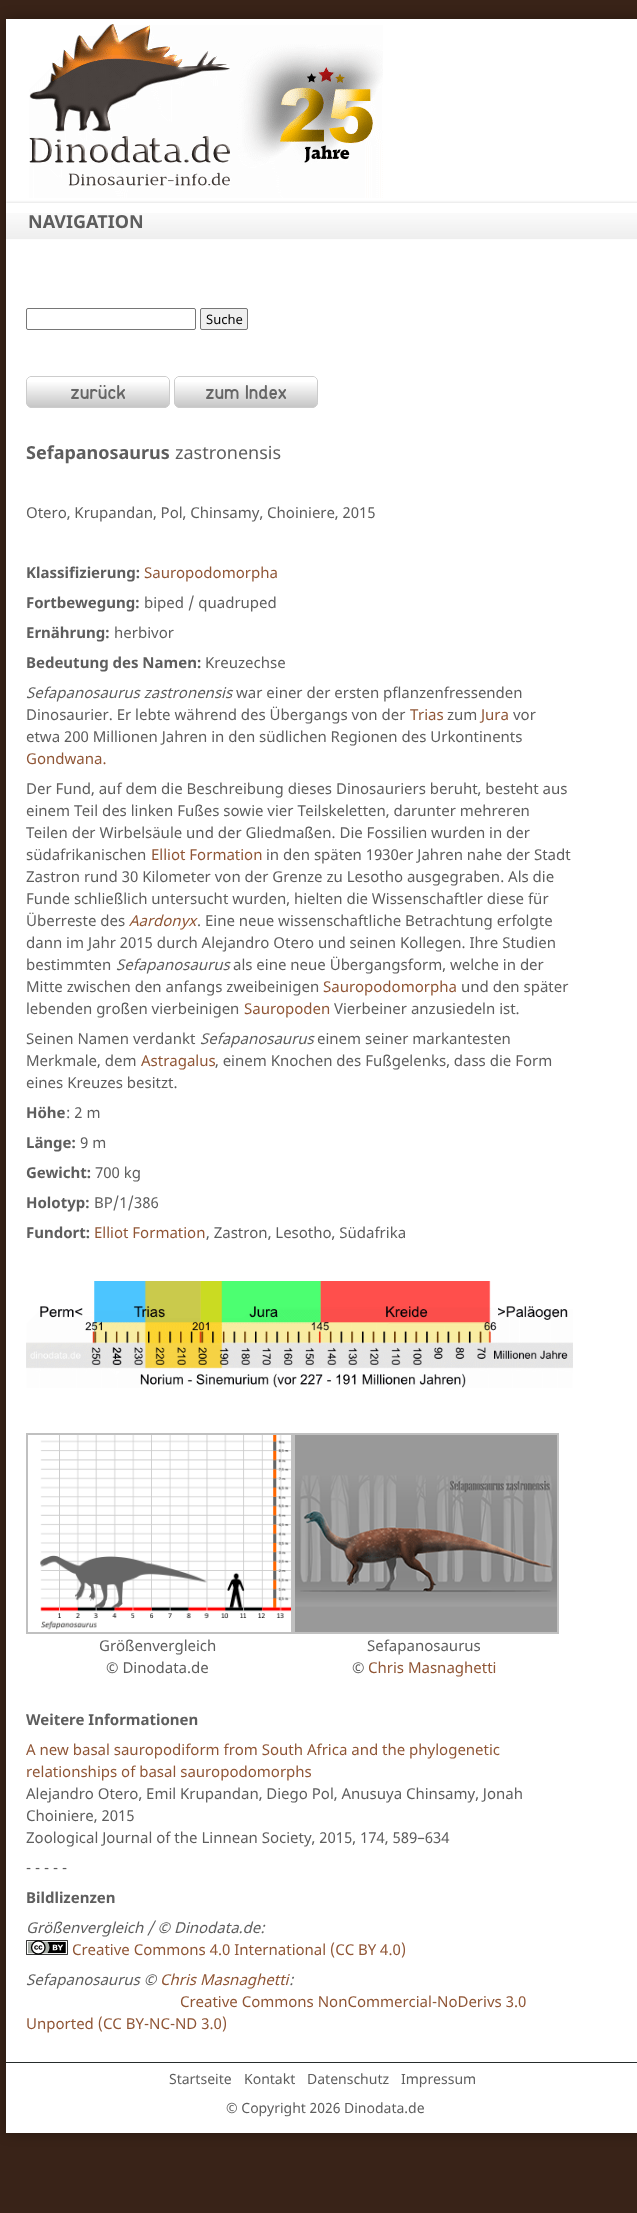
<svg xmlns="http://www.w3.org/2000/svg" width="637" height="2213">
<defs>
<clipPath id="clip1"><path d="M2 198h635v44h-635zm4 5h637v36h-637z" clip-rule="evenodd"/></clipPath>
</defs>
<rect width="100%" height="100%" fill="#392318"/>
<rect x="6" y="19" width="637" height="2114" fill="#0000004d" filter="blur(6.5px)"/>
<rect x="6" y="19" width="631" height="2114" fill="#fff"/>
<image x="29" y="24" width="354" height="174" href="media/1.png"/>
<g clip-path="url(#clip1)">
<rect x="6" y="202" width="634" height="36" fill="#0000001a" filter="blur(1px)"/>
</g>
<image x="6" y="213" width="631" height="26" href="media/2.png"/>
<text x="28" y="228" style="font-family:Noto Sans;font-size:18px;font-weight:bold;fill:#5e5e5e">NAVIGATION</text>
<rect x="26.5" y="308.5" width="169" height="21" rx="1.5" fill="none" stroke="#767676"/>
<rect x="200.5" y="308.5" width="47" height="21" rx="1.5" fill="#efefef" stroke="#767676"/>
<text x="206" y="324" style="font-family:Noto Sans;font-size:13px;fill:#000">Suche</text>
<image x="26" y="376" width="144" height="32" href="media/3.png"/>
<image x="174" y="376" width="144" height="32" href="media/4.png"/>
<text x="26" y="459" style="font-family:Noto Sans;font-size:18px;font-weight:bold;fill:#5e5e5e">Sefapanosaurus</text>
<text x="175" y="459" style="font-family:Noto Sans;font-size:18px;fill:#5e5e5e">zastronensis</text>
<text x="26" y="518" style="font-family:Noto Sans;font-size:15px;fill:#5e5e5e">Otero, Krupandan, Pol, Chinsamy, Choiniere, 2015</text>
<text x="26" y="578" style="font-family:Noto Sans;font-size:15px;font-weight:bold;fill:#5e5e5e">Klassifizierung:</text>
<text x="144" y="578" style="font-family:Noto Sans;font-size:15px;fill:#905636">Sauropodomorpha</text>
<text x="26" y="608" style="font-family:Noto Sans;font-size:15px;font-weight:bold;fill:#5e5e5e">Fortbewegung:</text>
<text x="144" y="608" style="font-family:Noto Sans;font-size:15px;fill:#5e5e5e">biped / quadruped</text>
<text x="26" y="638" style="font-family:Noto Sans;font-size:15px;font-weight:bold;fill:#5e5e5e">Ernährung:</text>
<text x="114" y="638" style="font-family:Noto Sans;font-size:15px;fill:#5e5e5e">herbivor</text>
<text x="26" y="668" style="font-family:Noto Sans;font-size:15px;font-weight:bold;fill:#5e5e5e">Bedeutung des Namen:</text>
<text x="205" y="668" style="font-family:Noto Sans;font-size:15px;fill:#5e5e5e">Kreuzechse</text>
<text x="26" y="698" style="font-family:Noto Sans;font-size:15px;font-style:italic;fill:#5e5e5e">Sefapanosaurus zastronensis</text>
<text x="236" y="698" style="font-family:Noto Sans;font-size:15px;fill:#5e5e5e">war einer der ersten pflanzenfressenden</text>
<text x="26" y="720" style="font-family:Noto Sans;font-size:15px;fill:#5e5e5e">Dinosaurier. Er lebte während des Übergangs von der</text>
<text x="410" y="720" style="font-family:Noto Sans;font-size:15px;fill:#905636">Trias</text>
<text x="447" y="720" style="font-family:Noto Sans;font-size:15px;fill:#5e5e5e">zum</text>
<text x="481" y="720" style="font-family:Noto Sans;font-size:15px;fill:#905636">Jura</text>
<text x="513" y="720" style="font-family:Noto Sans;font-size:15px;fill:#5e5e5e">vor</text>
<text x="26" y="742" style="font-family:Noto Sans;font-size:15px;fill:#5e5e5e">etwa 200 Millionen Jahren in den südlichen Regionen des Urkontinents</text>
<text x="26" y="764" style="font-family:Noto Sans;font-size:15px;fill:#905636">Gondwana.</text>
<text x="26" y="794" style="font-family:Noto Sans;font-size:15px;fill:#5e5e5e">Der Fund, auf dem die Beschreibung dieses Dinosauriers beruht, besteht aus</text>
<text x="26" y="816" style="font-family:Noto Sans;font-size:15px;fill:#5e5e5e">einem Teil des linken Fußes sowie vier Teilskeletten, darunter mehreren</text>
<text x="26" y="838" style="font-family:Noto Sans;font-size:15px;fill:#5e5e5e">Teilen der Wirbelsäule und der Gliedmaßen. Die Fossilien wurden in der</text>
<text x="26" y="860" style="font-family:Noto Sans;font-size:15px;fill:#5e5e5e">südafrikanischen</text>
<text x="151" y="860" style="font-family:Noto Sans;font-size:15px;fill:#905636">Elliot Formation</text>
<text x="266" y="860" style="font-family:Noto Sans;font-size:15px;fill:#5e5e5e">in den späten 1930er Jahren nahe der Stadt</text>
<text x="26" y="882" style="font-family:Noto Sans;font-size:15px;fill:#5e5e5e">Zastron rund 30 Kilometer von der Grenze zu Lesotho ausgegraben. Als die</text>
<text x="26" y="904" style="font-family:Noto Sans;font-size:15px;fill:#5e5e5e">Funde schließlich untersucht wurden, hielten die Wissenschaftler diese für</text>
<text x="26" y="926" style="font-family:Noto Sans;font-size:15px;fill:#5e5e5e">Überreste des</text>
<text x="129" y="926" style="font-family:Noto Sans;font-size:15px;font-style:italic;fill:#905636">Aardonyx</text>
<text x="197" y="926" style="font-family:Noto Sans;font-size:15px;fill:#5e5e5e">. Eine neue wissenschaftliche Betrachtung erfolgte</text>
<text x="26" y="948" style="font-family:Noto Sans;font-size:15px;fill:#5e5e5e">dann im Jahr 2015 durch Alejandro Otero und seinen Kollegen. Ihre Studien</text>
<text x="26" y="970" style="font-family:Noto Sans;font-size:15px;fill:#5e5e5e">bestimmten</text>
<text x="116" y="970" style="font-family:Noto Sans;font-size:15px;font-style:italic;fill:#5e5e5e">Sefapanosaurus</text>
<text x="233" y="970" style="font-family:Noto Sans;font-size:15px;fill:#5e5e5e">als eine neue Übergangsform, welche in der</text>
<text x="26" y="992" style="font-family:Noto Sans;font-size:15px;fill:#5e5e5e">Mitte zwischen den anfangs zweibeinigen</text>
<text x="323" y="992" style="font-family:Noto Sans;font-size:15px;fill:#905636">Sauropodomorpha</text>
<text x="461" y="992" style="font-family:Noto Sans;font-size:15px;fill:#5e5e5e">und den später</text>
<text x="26" y="1014" style="font-family:Noto Sans;font-size:15px;fill:#5e5e5e">lebenden großen vierbeinigen</text>
<text x="244" y="1014" style="font-family:Noto Sans;font-size:15px;fill:#905636">Sauropoden</text>
<text x="334" y="1014" style="font-family:Noto Sans;font-size:15px;fill:#5e5e5e">Vierbeiner anzusiedeln ist.</text>
<text x="26" y="1044" style="font-family:Noto Sans;font-size:15px;fill:#5e5e5e">Seinen Namen verdankt</text>
<text x="200" y="1044" style="font-family:Noto Sans;font-size:15px;font-style:italic;fill:#5e5e5e">Sefapanosaurus</text>
<text x="317" y="1044" style="font-family:Noto Sans;font-size:15px;fill:#5e5e5e">einem seiner markantesten</text>
<text x="26" y="1066" style="font-family:Noto Sans;font-size:15px;fill:#5e5e5e">Merkmale, dem</text>
<text x="141" y="1066" style="font-family:Noto Sans;font-size:15px;fill:#905636">Astragalus</text>
<text x="215" y="1066" style="font-family:Noto Sans;font-size:15px;fill:#5e5e5e">, einem Knochen des Fußgelenks, dass die Form</text>
<text x="26" y="1088" style="font-family:Noto Sans;font-size:15px;fill:#5e5e5e">eines Kreuzes besitzt.</text>
<text x="26" y="1118" style="font-family:Noto Sans;font-size:15px;font-weight:bold;fill:#5e5e5e">Höhe</text>
<text x="66" y="1118" style="font-family:Noto Sans;font-size:15px;fill:#5e5e5e">: 2 m</text>
<text x="26" y="1148" style="font-family:Noto Sans;font-size:15px;font-weight:bold;fill:#5e5e5e">Länge:</text>
<text x="80" y="1148" style="font-family:Noto Sans;font-size:15px;fill:#5e5e5e">9 m</text>
<text x="26" y="1178" style="font-family:Noto Sans;font-size:15px;font-weight:bold;fill:#5e5e5e">Gewicht:</text>
<text x="95" y="1178" style="font-family:Noto Sans;font-size:15px;fill:#5e5e5e">700 kg</text>
<text x="26" y="1208" style="font-family:Noto Sans;font-size:15px;font-weight:bold;fill:#5e5e5e">Holotyp:</text>
<text x="94" y="1208" style="font-family:Noto Sans;font-size:15px;fill:#5e5e5e">BP/1/386</text>
<text x="26" y="1238" style="font-family:Noto Sans;font-size:15px;font-weight:bold;fill:#5e5e5e">Fundort:</text>
<text x="94" y="1238" style="font-family:Noto Sans;font-size:15px;fill:#905636">Elliot Formation</text>
<text x="206" y="1238" style="font-family:Noto Sans;font-size:15px;fill:#5e5e5e">, Zastron, Lesotho, Südafrika</text>
<image x="26" y="1281" width="547" height="107" href="media/5.png"/>
<rect x="27" y="1434" width="265" height="199" fill="none" stroke="#c0c0c0" stroke-width="2"/>
<image x="40" y="1435" width="251" height="195" href="media/6.png"/>
<text x="99" y="1651" style="font-family:Noto Sans;font-size:15px;fill:#5e5e5e">Größenvergleich</text>
<text x="106" y="1673" style="font-family:Noto Sans;font-size:15px;fill:#5e5e5e">© Dinodata.de</text>
<rect x="294" y="1434" width="264" height="199" fill="none" stroke="#c0c0c0" stroke-width="2"/>
<image x="295" y="1435" width="262" height="197" href="media/7.png"/>
<text x="367" y="1651" style="font-family:Noto Sans;font-size:15px;fill:#5e5e5e">Sefapanosaurus</text>
<text x="352" y="1673" style="font-family:Noto Sans;font-size:15px;fill:#5e5e5e">©</text>
<text x="368" y="1673" style="font-family:Noto Sans;font-size:15px;fill:#905636">Chris Masnaghetti</text>
<text x="26" y="1725" style="font-family:Noto Sans;font-size:15px;font-weight:bold;fill:#5e5e5e">Weitere Informationen</text>
<text x="26" y="1755" style="font-family:Noto Sans;font-size:15px;fill:#905636">A new basal sauropodiform from South Africa and the phylogenetic</text>
<text x="26" y="1777" style="font-family:Noto Sans;font-size:15px;fill:#905636">relationships of basal sauropodomorphs</text>
<text x="26" y="1799" style="font-family:Noto Sans;font-size:15px;fill:#5e5e5e">Alejandro Otero, Emil Krupandan, Diego Pol, Anusuya Chinsamy, Jonah</text>
<text x="26" y="1821" style="font-family:Noto Sans;font-size:15px;fill:#5e5e5e">Choiniere, 2015</text>
<text x="26" y="1843" style="font-family:Noto Sans;font-size:15px;fill:#5e5e5e">Zoological Journal of the Linnean Society, 2015, 174, 589–634</text>
<text x="26" y="1873" style="font-family:Noto Sans;font-size:15px;fill:#5e5e5e">- - - - -</text>
<text x="26" y="1903" style="font-family:Noto Sans;font-size:15px;font-weight:bold;fill:#5e5e5e">Bildlizenzen</text>
<text x="26" y="1933" style="font-family:Noto Sans;font-size:15px;font-style:italic;fill:#5e5e5e">Größenvergleich / © Dinodata.de:</text>
<image x="26" y="1940" width="42" height="15" href="media/8.png"/>
<text x="72" y="1955" style="font-family:Noto Sans;font-size:15px;fill:#905636">Creative Commons 4.0 International (CC BY 4.0)</text>
<text x="26" y="1985" style="font-family:Noto Sans;font-size:15px;font-style:italic;fill:#5e5e5e">Sefapanosaurus ©</text>
<text x="160" y="1985" style="font-family:Noto Sans;font-size:15px;font-style:italic;fill:#905636">Chris Masnaghetti</text>
<text x="289" y="1985" style="font-family:Noto Sans;font-size:15px;font-style:italic;fill:#5e5e5e">:</text>
<text x="180" y="2007" style="font-family:Noto Sans;font-size:15px;fill:#905636">Creative Commons NonCommercial-NoDerivs 3.0</text>
<text x="26" y="2029" style="font-family:Noto Sans;font-size:15px;fill:#905636">Unported (CC BY-NC-ND 3.0)</text>
<rect x="6" y="2062" width="631" height="1" fill="#262c2c"/>
<text x="169" y="2084" style="font-family:Noto Sans;font-size:14px;fill:#5e5e5e">Startseite</text>
<text x="244" y="2084" style="font-family:Noto Sans;font-size:14px;fill:#5e5e5e">Kontakt</text>
<text x="307" y="2084" style="font-family:Noto Sans;font-size:14px;fill:#5e5e5e">Datenschutz</text>
<text x="401" y="2084" style="font-family:Noto Sans;font-size:14px;fill:#5e5e5e">Impressum</text>
<text x="226" y="2113" style="font-family:Noto Sans;font-size:14px;fill:#5e5e5e">© Copyright 2026 Dinodata.de</text>
</svg>
